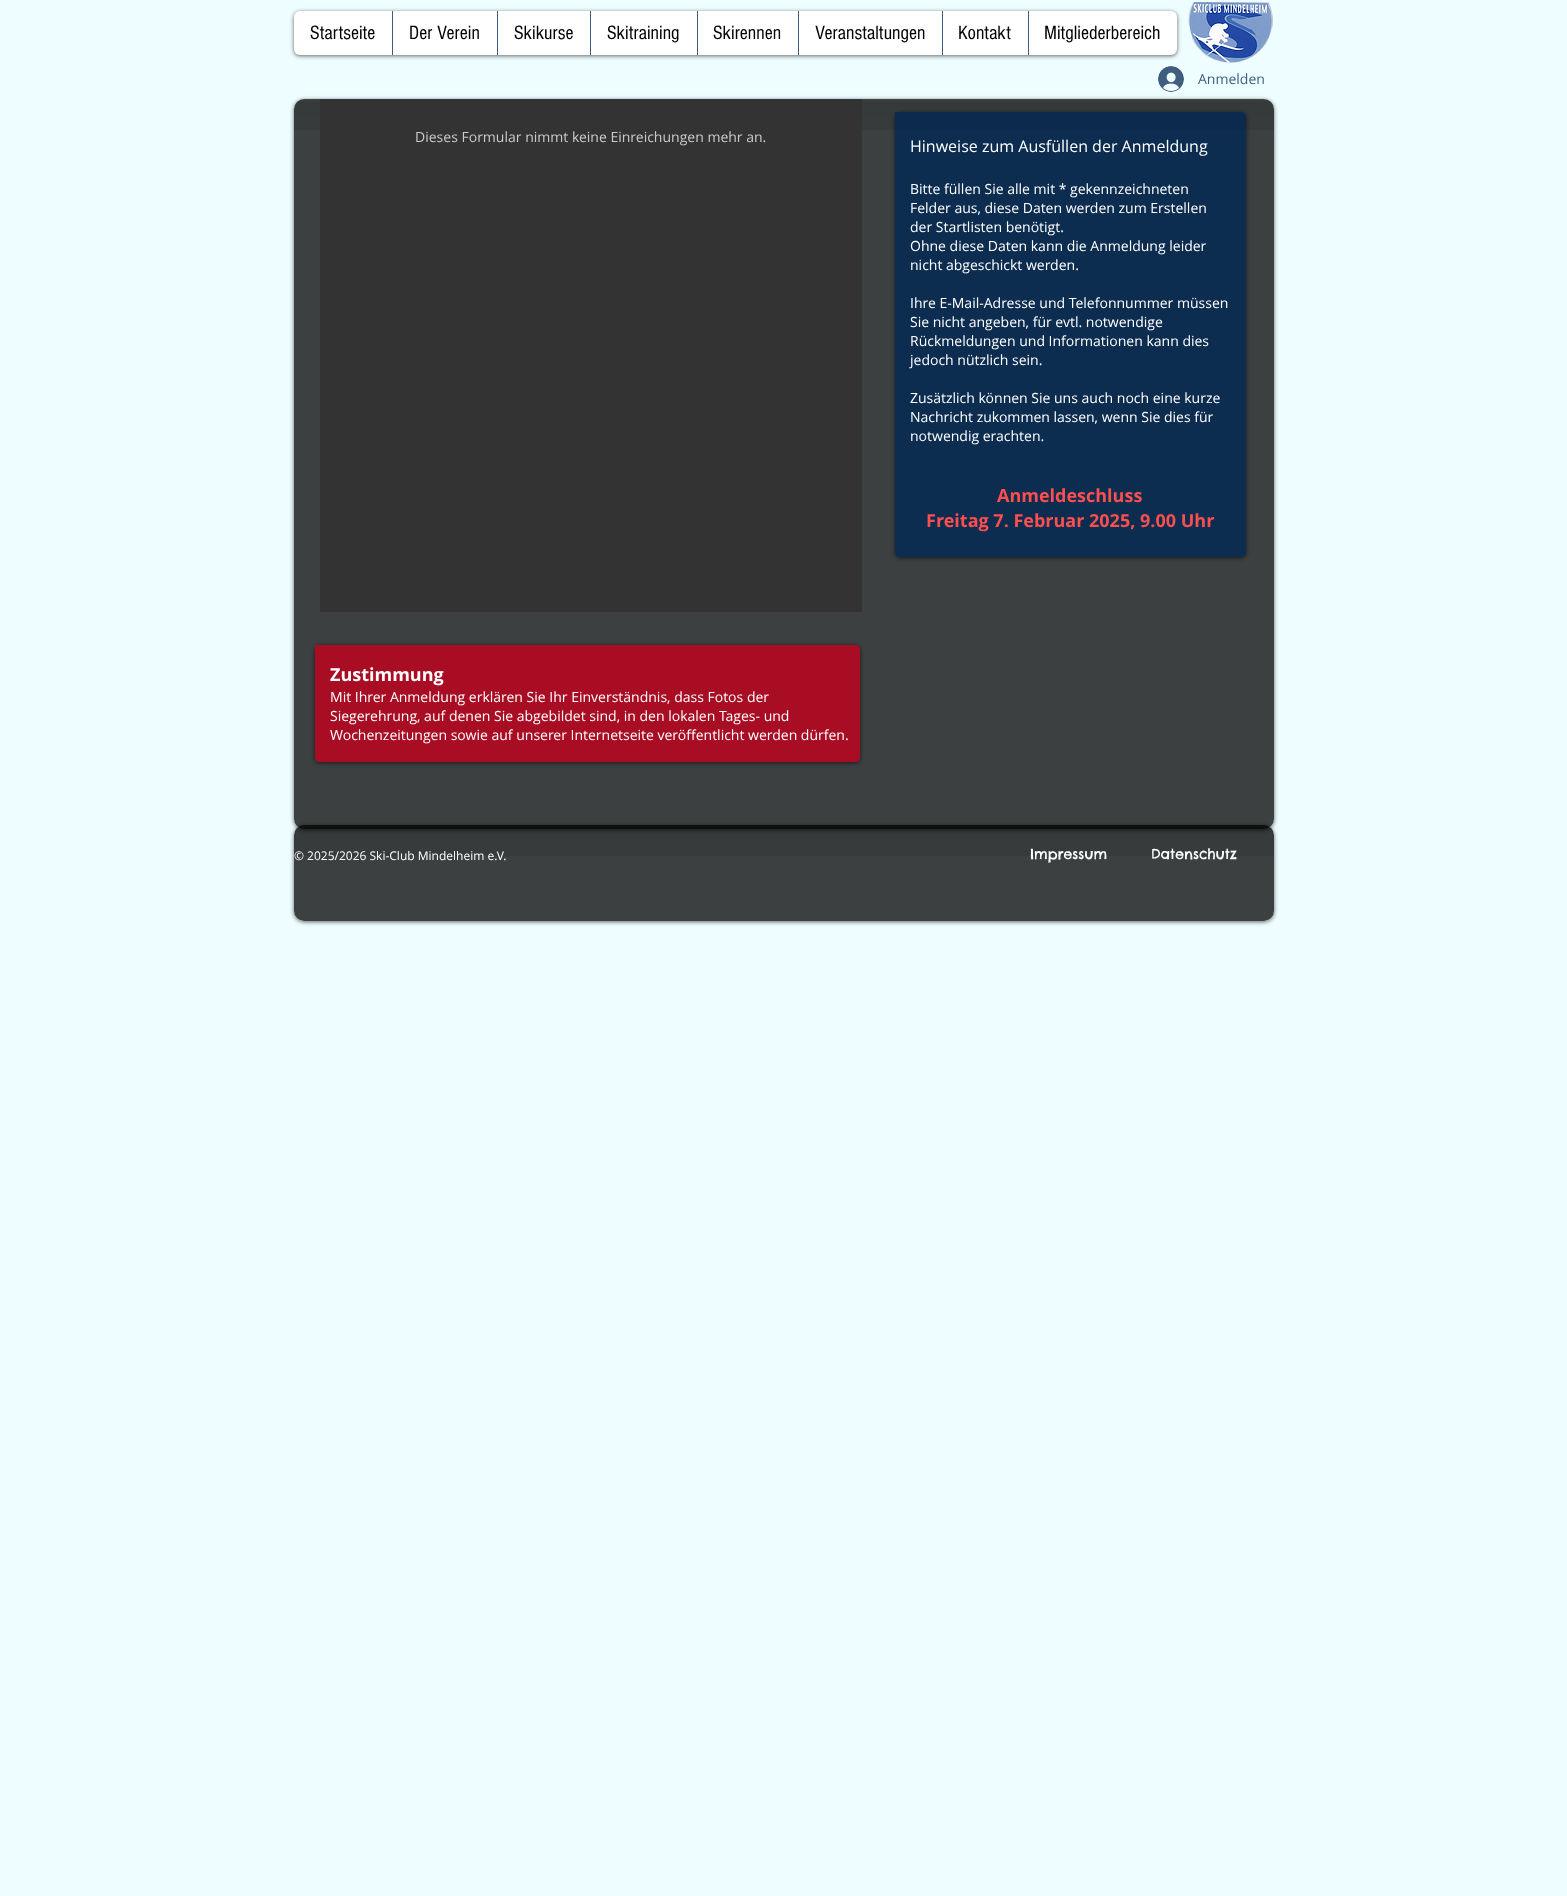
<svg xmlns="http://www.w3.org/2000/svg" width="1567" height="1896">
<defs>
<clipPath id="clip1"><path d="M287 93h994v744h-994zm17 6h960c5.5 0 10 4.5 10 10v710c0 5.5-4.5 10-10 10h-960c-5.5 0-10-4.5-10-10v-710c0-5.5 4.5-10 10-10z" clip-rule="evenodd"/></clipPath>
<clipPath id="clip2"><path d="M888 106h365v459h-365zm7 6h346c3 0 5 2 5 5v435c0 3-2 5-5 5h-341c-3 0-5-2-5-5z" clip-rule="evenodd"/></clipPath>
<clipPath id="clip3"><path d="M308 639h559v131h-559zm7 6h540c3 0 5 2 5 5v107c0 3-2 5-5 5h-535c-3 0-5-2-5-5z" clip-rule="evenodd"/></clipPath>
<clipPath id="clip4"><path d="M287 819h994v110h-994zm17 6h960c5.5 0 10 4.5 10 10v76c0 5.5-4.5 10-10 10h-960c-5.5 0-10-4.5-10-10v-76c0-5.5 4.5-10 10-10z" clip-rule="evenodd"/></clipPath>
</defs>
<rect width="100%" height="100%" fill="#eefdff"/>
<rect x="294" y="12" width="883" height="44" rx="6" fill="#00000099" filter="blur(2px)"/>
<rect x="294" y="11" width="883" height="44" rx="6" fill="#fff"/>
<text x="310" y="39" style="font-family:'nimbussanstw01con';font-size:20px;fill:#000">Startseite</text>
<rect x="392" y="11" width="1" height="44" fill="#3f5d7e"/>
<text x="409" y="39" style="font-family:'nimbussanstw01con';font-size:20px;fill:#000">Der Verein</text>
<rect x="497" y="11" width="1" height="44" fill="#3f5d7e"/>
<text x="514" y="39" style="font-family:'nimbussanstw01con';font-size:20px;fill:#000">Skikurse</text>
<rect x="590" y="11" width="1" height="44" fill="#3f5d7e"/>
<text x="607" y="39" style="font-family:'nimbussanstw01con';font-size:20px;fill:#000">Skitraining</text>
<rect x="697" y="11" width="1" height="44" fill="#3f5d7e"/>
<text x="713" y="39" style="font-family:'nimbussanstw01con';font-size:20px;fill:#000">Skirennen</text>
<rect x="798" y="11" width="1" height="44" fill="#3f5d7e"/>
<text x="815" y="39" style="font-family:'nimbussanstw01con';font-size:20px;fill:#000">Veranstaltungen</text>
<rect x="942" y="11" width="1" height="44" fill="#3f5d7e"/>
<text x="958" y="39" style="font-family:'nimbussanstw01con';font-size:20px;fill:#000">Kontakt</text>
<rect x="1028" y="11" width="1" height="44" fill="#3f5d7e"/>
<text x="1044" y="39" style="font-family:'nimbussanstw01con';font-size:20px;fill:#000">Mitgliederbereich</text>
<image x="1188" y="2" width="85" height="61" href="media/1.png"/>
<image x="1158" y="66" width="26" height="26" href="media/2.png"/>
<text x="1198" y="84" style="font-family:Open Sans;font-size:14px;fill:#3f5d7e">Anmelden</text>
<g clip-path="url(#clip1)">
<rect x="294" y="100" width="980" height="730" rx="10" fill="#00000099" filter="blur(2px)"/>
</g>
<rect x="294" y="99" width="980" height="730" rx="10" fill="#000000bf"/>
<image x="294" y="101" width="980" height="29" href="media/3.png"/>
<rect x="320" y="99" width="542" height="513" fill="#333"/>
<text x="415" y="142" style="font-family:Open Sans;font-size:14px;fill:#cacaca">Dieses Formular nimmt keine Einreichungen mehr an.</text>
<g clip-path="url(#clip2)">
<rect x="895" y="113" width="351" height="445" rx="5" fill="#00000099" filter="blur(2px)"/>
</g>
<path d="M895 112h346c3 0 5 2 5 5v435c0 3-2 5-5 5h-341c-3 0-5-2-5-5z" fill="#002754cc"/>
<text x="910" y="152" style="font-family:Open Sans;font-size:16px;fill:#fff">Hinweise zum Ausfüllen der Anmeldung</text>
<text x="910" y="194" style="font-family:Open Sans;font-size:14px;fill:#fff">Bitte füllen Sie alle mit * gekennzeichneten</text>
<text x="910" y="213" style="font-family:Open Sans;font-size:14px;fill:#fff">Felder aus, diese Daten werden zum Erstellen</text>
<text x="910" y="232" style="font-family:Open Sans;font-size:14px;fill:#fff">der Startlisten benötigt.</text>
<text x="910" y="251" style="font-family:Open Sans;font-size:14px;fill:#fff">Ohne diese Daten kann die Anmeldung leider</text>
<text x="910" y="270" style="font-family:Open Sans;font-size:14px;fill:#fff">nicht abgeschickt werden.</text>
<text x="910" y="308" style="font-family:Open Sans;font-size:14px;fill:#fff">Ihre E-Mail-Adresse und Telefonnummer müssen</text>
<text x="910" y="327" style="font-family:Open Sans;font-size:14px;fill:#fff">Sie nicht angeben, für evtl. notwendige</text>
<text x="910" y="346" style="font-family:Open Sans;font-size:14px;fill:#fff">Rückmeldungen und Informationen kann dies</text>
<text x="910" y="365" style="font-family:Open Sans;font-size:14px;fill:#fff">jedoch nützlich sein.</text>
<text x="910" y="403" style="font-family:Open Sans;font-size:14px;fill:#fff">Zusätzlich können Sie uns auch noch eine kurze</text>
<text x="910" y="422" style="font-family:Open Sans;font-size:14px;fill:#fff">Nachricht zukommen lassen, wenn Sie dies für</text>
<text x="910" y="441" style="font-family:Open Sans;font-size:14px;fill:#fff">notwendig erachten.</text>
<text x="997" y="502" style="font-family:Open Sans;font-size:18px;font-weight:bold;fill:#ff4f4f">Anmeldeschluss</text>
<text x="926" y="527" style="font-family:Open Sans;font-size:18px;font-weight:bold;fill:#ff4f4f">Freitag 7. Februar 2025, 9.00 Uhr</text>
<g clip-path="url(#clip3)">
<rect x="315" y="646" width="545" height="117" rx="5" fill="#00000099" filter="blur(2px)"/>
</g>
<path d="M315 645h540c3 0 5 2 5 5v107c0 3-2 5-5 5h-535c-3 0-5-2-5-5z" fill="#c4001dcc"/>
<text x="330" y="681" style="font-family:Open Sans;font-size:18px;font-weight:bold;fill:#fff">Zustimmung</text>
<text x="330" y="702" style="font-family:Open Sans;font-size:14px;fill:#fff">Mit Ihrer Anmeldung erklären Sie Ihr Einverständnis, dass Fotos der</text>
<text x="330" y="721" style="font-family:Open Sans;font-size:14px;fill:#fff">Siegerehrung, auf denen Sie abgebildet sind, in den lokalen Tages- und</text>
<text x="330" y="740" style="font-family:Open Sans;font-size:14px;fill:#fff">Wochenzeitungen sowie auf unserer Internetseite veröffentlicht werden dürfen.</text>
<g clip-path="url(#clip4)">
<rect x="294" y="826" width="980" height="96" rx="10" fill="#00000099" filter="blur(2px)"/>
</g>
<rect x="294" y="825" width="980" height="96" rx="10" fill="#000000bf"/>
<image x="294" y="828" width="980" height="28" href="media/4.png"/>
<text x="294" y="860" style="font-family:Open Sans;font-size:12px;fill:#fff">© 2025/2026 Ski-Club Mindelheim e.V.</text>
<text x="1030" y="859" style="font-family:Chelsea Market;font-size:14px;fill:#fff">Impressum</text>
<text x="1151" y="859" style="font-family:Chelsea Market;font-size:14px;fill:#fff">Datenschutz</text>
</svg>
